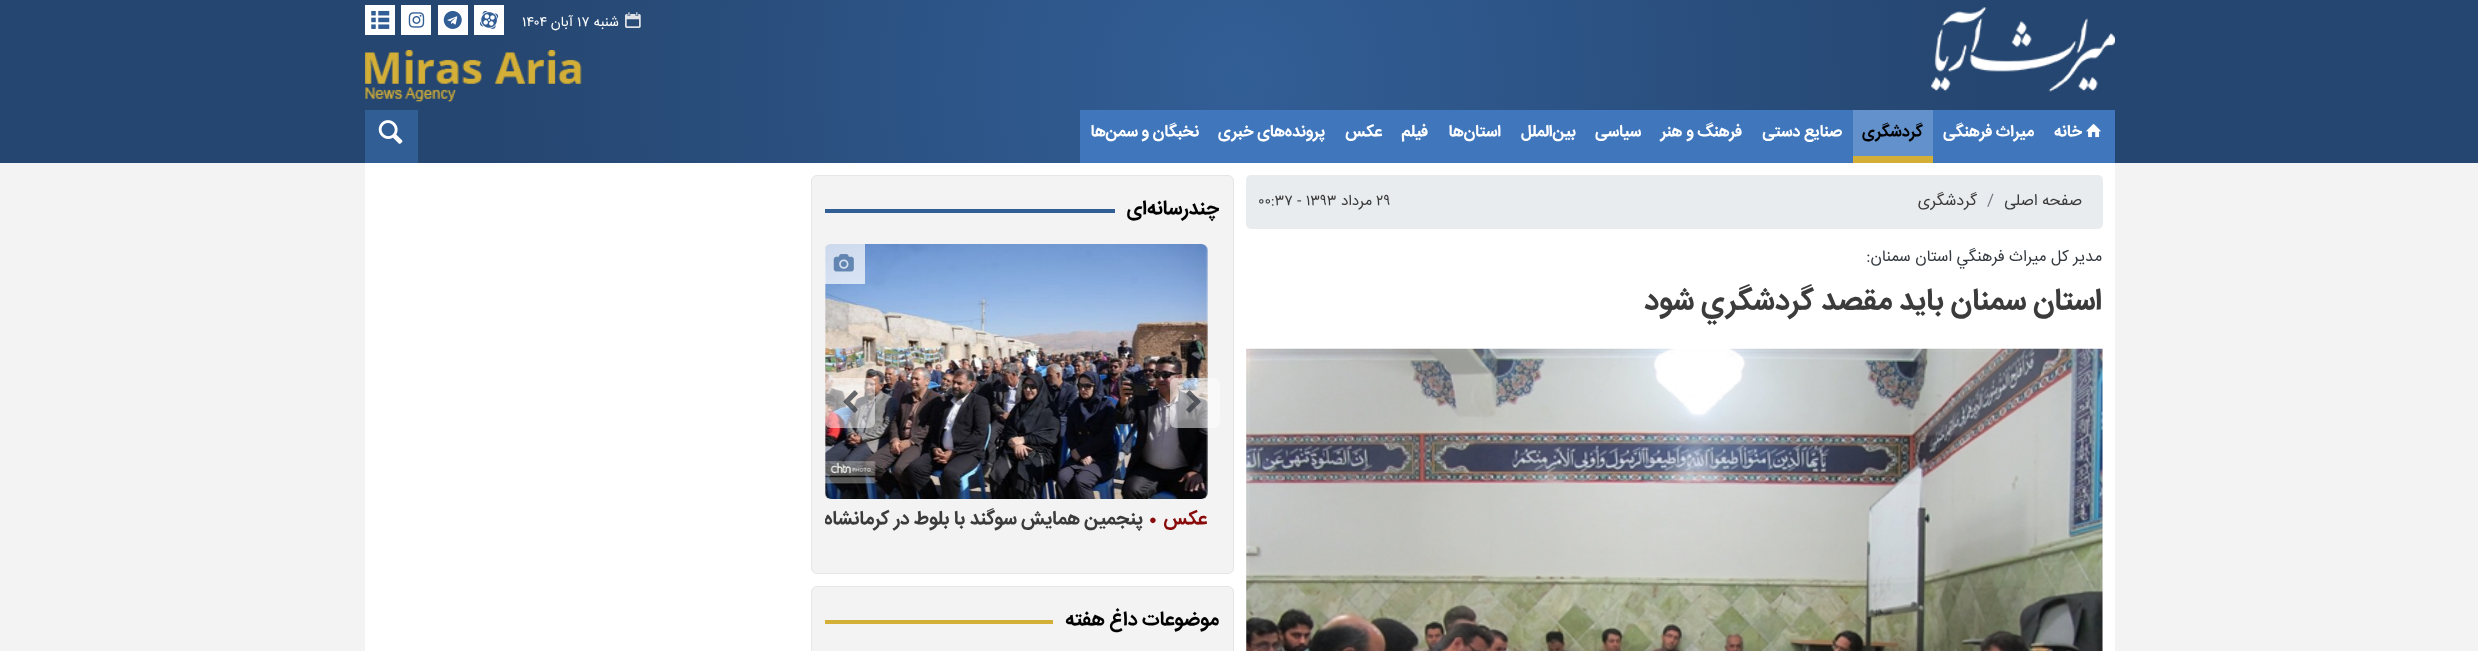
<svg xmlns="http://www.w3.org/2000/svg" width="2478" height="651">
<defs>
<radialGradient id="g1" gradientUnits="userSpaceOnUse" cx="1239" cy="81" r="1242"><stop offset="0" stop-color="#325e96"/><stop offset="0.6" stop-color="#254670"/></radialGradient>
<clipPath id="clip1"><rect x="825" y="244" width="395" height="316"/></clipPath>
</defs>
<rect width="100%" height="100%" fill="#f4f3f3"/>
<rect width="2478" height="163" fill="url(#g1)"/>
<image x="1931" y="7" width="184" height="85" href="media/1.png"/>
<image x="625" y="12" width="16" height="16" href="media/2.png"/>
<text x="619" y="26" style="font-family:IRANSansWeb;font-size:14px;direction:rtl;fill:#fff">شنبه</text>
<text x="577" y="26" style="font-family:IRANSansWeb;font-size:14px;fill:#fff">۱۷</text>
<text x="573" y="26" style="font-family:IRANSansWeb;font-size:14px;direction:rtl;fill:#fff">آبان</text>
<text x="522" y="26" style="font-family:IRANSansWeb;font-size:14px;fill:#fff">۱۴۰۴</text>
<rect x="474" y="5" width="30" height="30" fill="#fff"/>
<image x="480" y="11" width="19" height="18" href="media/3.png"/>
<rect x="438" y="5" width="30" height="30" fill="#fff"/>
<image x="443" y="10" width="19" height="19" href="media/4.png"/>
<rect x="401" y="5" width="30" height="30" fill="#fff"/>
<image x="408" y="12" width="17" height="16" href="media/5.png"/>
<rect x="365" y="5" width="30" height="30" fill="#fff"/>
<image x="371" y="10" width="19" height="19" href="media/6.png"/>
<image x="365" y="50" width="217" height="52" href="media/7.png"/>
<rect x="1933" y="110" width="182" height="53" fill="#3f76bc"/>
<image x="2086" y="124" width="15" height="14" href="media/8.png"/>
<text x="2082" y="136" style="font-family:IRANSansWeb;font-size:16.25px;font-weight:bold;direction:rtl;fill:#fff">خانه</text>
<text x="2034" y="136" style="font-family:IRANSansWeb;font-size:16.25px;font-weight:bold;direction:rtl;fill:#fff">میراث فرهنگی</text>
<rect x="1853" y="110" width="80" height="46" fill="#6391cb"/>
<rect x="1853" y="156" width="80" height="7" fill="#d4af37"/>
<text x="1923" y="136" style="font-family:IRANSansWeb;font-size:16.25px;font-weight:bold;direction:rtl;fill:#000">گردشگری</text>
<rect x="1080" y="110" width="773" height="53" fill="#3f76bc"/>
<text x="1842" y="136" style="font-family:IRANSansWeb;font-size:16.25px;font-weight:bold;direction:rtl;fill:#fff">صنایع دستی</text>
<text x="1742" y="136" style="font-family:IRANSansWeb;font-size:16.25px;font-weight:bold;direction:rtl;fill:#fff">فرهنگ و هنر</text>
<text x="1641" y="136" style="font-family:IRANSansWeb;font-size:16.25px;font-weight:bold;direction:rtl;fill:#fff">سیاسی</text>
<text x="1576" y="136" style="font-family:IRANSansWeb;font-size:16.25px;font-weight:bold;direction:rtl;fill:#fff">بین‌الملل</text>
<text x="1501" y="136" style="font-family:IRANSansWeb;font-size:16.25px;font-weight:bold;direction:rtl;fill:#fff">استان‌ها</text>
<text x="1428" y="136" style="font-family:IRANSansWeb;font-size:16.25px;font-weight:bold;direction:rtl;fill:#fff">فیلم</text>
<text x="1382" y="136" style="font-family:IRANSansWeb;font-size:16.25px;font-weight:bold;direction:rtl;fill:#fff">عکس</text>
<text x="1325" y="136" style="font-family:IRANSansWeb;font-size:16.25px;font-weight:bold;direction:rtl;fill:#fff">پرونده‌های خبری</text>
<text x="1199" y="136" style="font-family:IRANSansWeb;font-size:16.25px;font-weight:bold;direction:rtl;fill:#fff">نخبگان و سمن‌ها</text>
<rect x="365" y="110" width="53" height="53" fill="#325e96"/>
<image x="378" y="120" width="25" height="24" href="media/9.png"/>
<rect x="365" y="163" width="1750" height="488" fill="#fff"/>
<rect x="1246" y="175" width="857" height="54" rx="5" fill="#e9ecef"/>
<text x="2082" y="205" style="font-family:IRANSansWeb;font-size:16px;direction:rtl;fill:#3b3b3b">صفحه اصلی</text>
<text x="1987" y="205" style="font-family:IRANSansWeb;font-size:16px;fill:#6c757d">/</text>
<text x="1977" y="205" style="font-family:IRANSansWeb;font-size:16px;direction:rtl;fill:#3b3b3b">گردشگری</text>
<text x="1376" y="205" style="font-family:IRANSansWeb;font-size:15px;fill:#3b3b3b">۲۹</text>
<text x="1372" y="205" style="font-family:IRANSansWeb;font-size:15px;direction:rtl;fill:#3b3b3b">مرداد</text>
<text x="1258" y="205" style="font-family:IRANSansWeb;font-size:15px;fill:#3b3b3b">۰۰:۳۷ - ۱۳۹۳</text>
<text x="2102" y="261" style="font-family:IRANSansWeb;font-size:16px;direction:rtl;fill:#343a40">مدير كل ميراث فرهنگي استان سمنان:</text>
<text x="2102" y="309" style="font-family:IRANSansWeb;font-size:30px;font-weight:bold;direction:rtl;fill:#3b3b3b">استان سمنان بايد مقصد گردشگري شود</text>
<rect x="1246" y="376" width="857" height="275" fill="#f8f9fa"/>
<rect x="1246" y="349" width="857" height="27" fill="#f7f7f7"/>
<image x="1246" y="348" width="857" height="303" href="media/10.png"/>
<rect x="811.5" y="175.5" width="422" height="398" rx="5.5" fill="#f4f3f3" stroke="#e6e6e6"/>
<text x="1219" y="214" style="font-family:IRANSansWeb;font-size:20px;font-weight:bold;direction:rtl;fill:#000">چندرسانه‌ای</text>
<rect x="825" y="209" width="290" height="4" fill="#325e96"/>
<image x="825" y="244" width="383" height="255" href="media/13.png"/>
<rect x="1170" y="378" width="50" height="50" rx="6" fill="#ffffff80"/>
<image x="1186" y="390" width="15" height="23" href="media/11.png"/>
<rect x="825" y="378" width="50" height="50" rx="6" fill="#ffffff80"/>
<image x="843" y="390" width="15" height="23" href="media/12.png"/>
<path d="M831 244h34v40h-40v-34c0-3.5 2.5-6 6-6z" fill="#ffffffb3"/>
<image x="833" y="254" width="21" height="18" href="media/14.png"/>
<text x="1207" y="524" style="font-family:IRANSansWeb;font-size:19.25px;font-weight:bold;direction:rtl;fill:#880a0a">عکس</text>
<text x="1149" y="524" style="font-family:Liberation Serif;font-size:13px;font-weight:bold;fill:#880a0a">●</text>
<g clip-path="url(#clip1)">
<text x="1143" y="524" style="font-family:IRANSansWeb;font-size:19.25px;font-weight:bold;direction:rtl;fill:#3b3b3b">پنجمین همایش سوگند با بلوط در کرمانشاه</text>
</g>
<rect x="811.5" y="586.5" width="422" height="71" rx="5.5" fill="#f4f3f3" stroke="#e6e6e6"/>
<text x="1219" y="625" style="font-family:IRANSansWeb;font-size:20px;font-weight:bold;direction:rtl;fill:#000">موضوعات داغ هفته</text>
<rect x="825" y="620" width="228" height="4" fill="#d4af37"/>
</svg>
